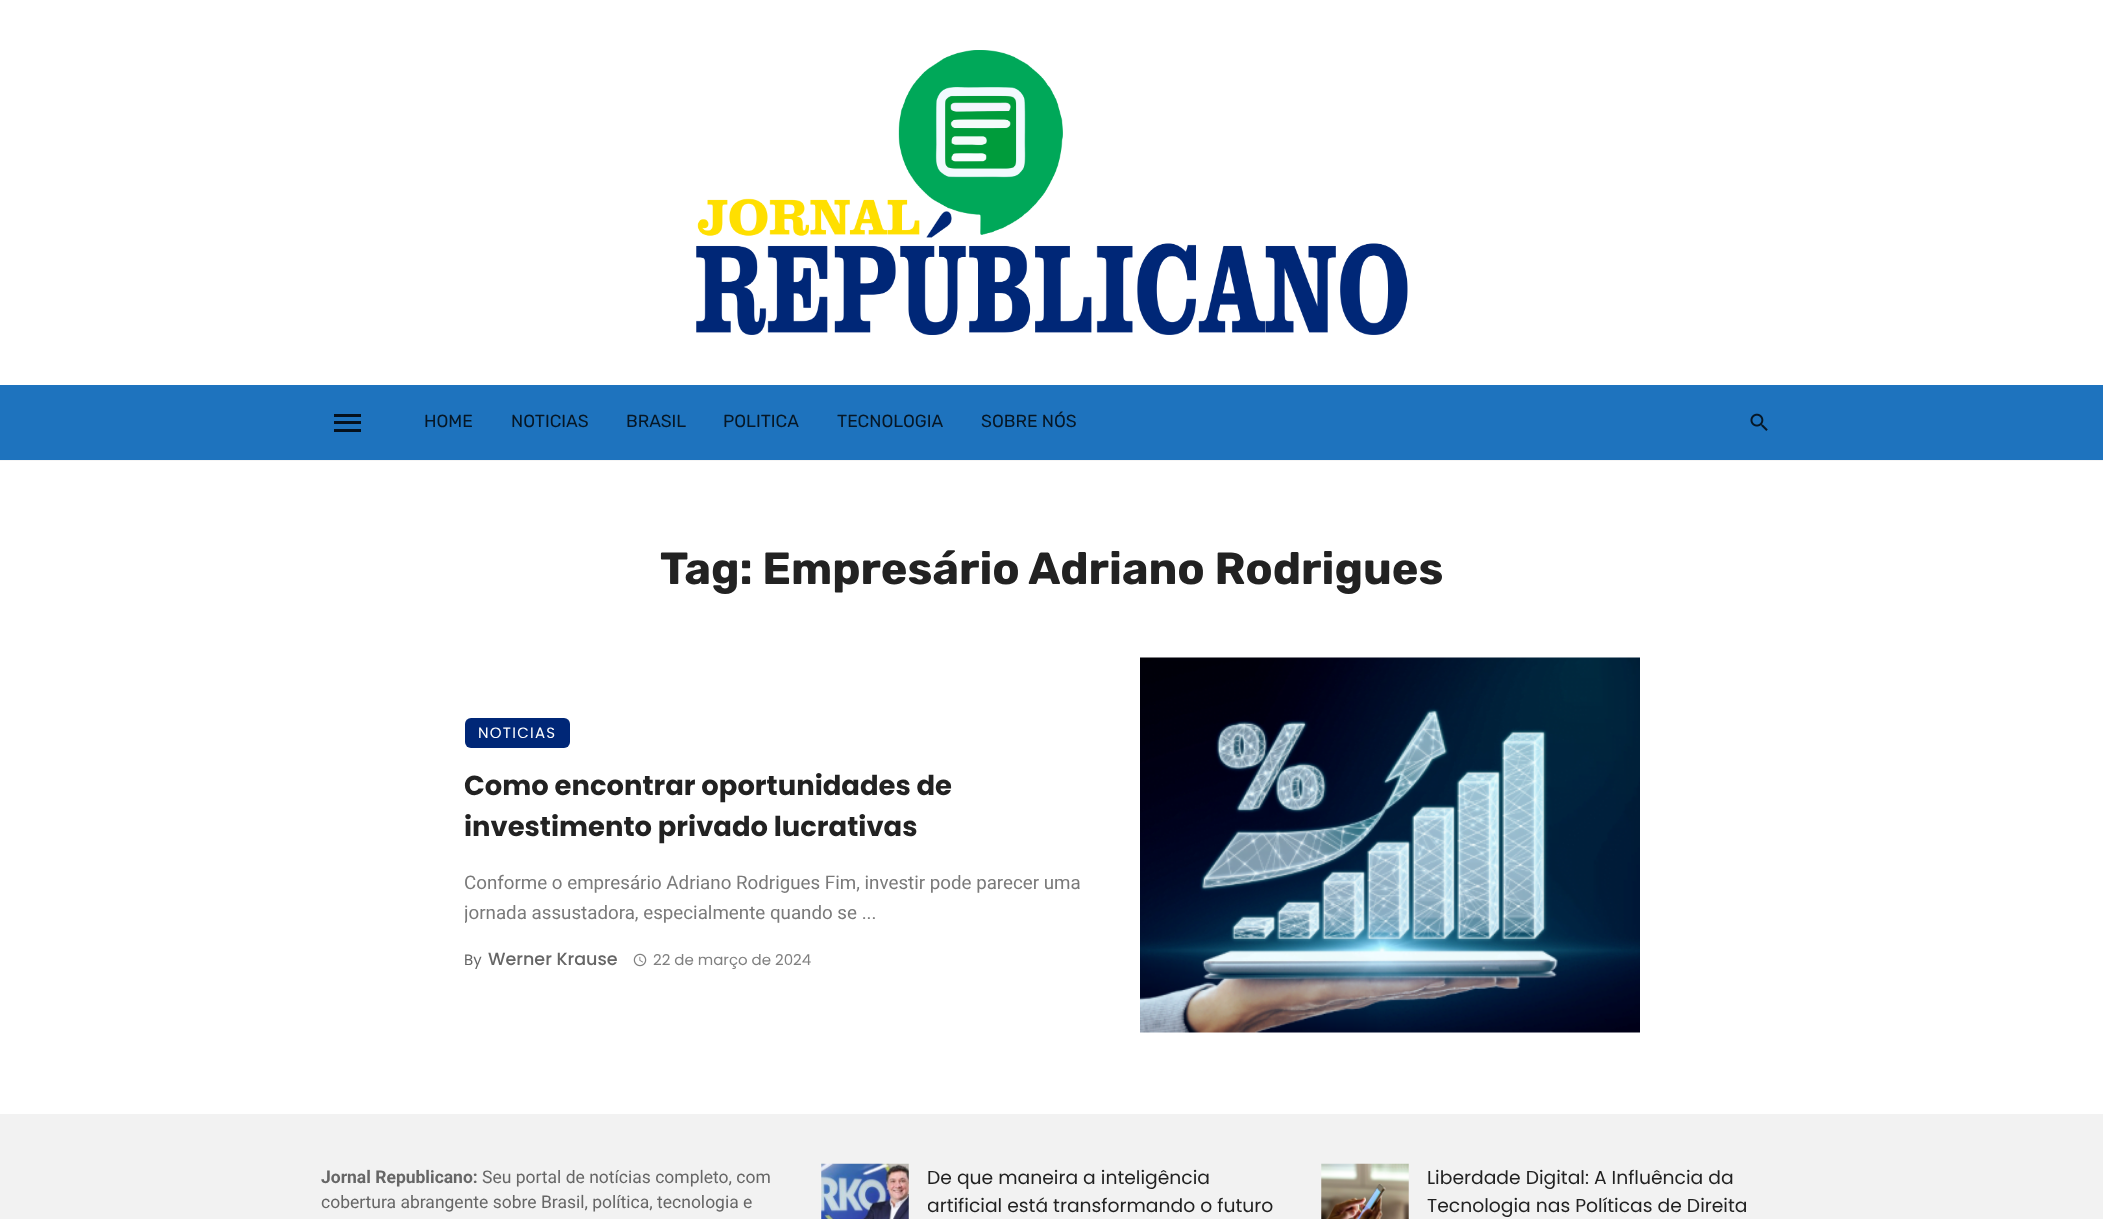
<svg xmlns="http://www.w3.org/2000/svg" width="2103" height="1219">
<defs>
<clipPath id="clip1"><rect x="465" y="718" width="625" height="255"/></clipPath>
<clipPath id="clip2"><rect x="928" y="1164" width="356" height="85"/></clipPath>
</defs>
<rect width="100%" height="100%" fill="#fff"/>
<path d="M0 460v1h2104v-460v459z" fill="#f5f5f5"/>
<image x="696" y="50" width="712" height="285" href="media/1.png"/>
<rect y="385" width="2103" height="75" fill="#1e73be"/>
<rect x="334" y="421" width="27" height="3" fill="#05111d"/>
<rect x="334" y="414" width="27" height="3" fill="#05111d"/>
<rect x="334" y="429" width="27" height="3" fill="#05111d"/>
<text x="424" y="427" style="font-family:Rubik;font-size:17.5px;fill:#061726">HOME</text>
<text x="511" y="427" style="font-family:Rubik;font-size:17.5px;fill:#061726">NOTICIAS</text>
<text x="626" y="427" style="font-family:Rubik;font-size:17.5px;fill:#061726">BRASIL</text>
<text x="723" y="427" style="font-family:Rubik;font-size:17.5px;fill:#061726">POLITICA</text>
<text x="837" y="427" style="font-family:Rubik;font-size:17.5px;fill:#061726">TECNOLOGIA</text>
<text x="981" y="427" style="font-family:Rubik;font-size:17.5px;fill:#061726">SOBRE NÓS</text>
<image x="1750" y="413" width="18" height="18" href="media/2.png"/>
<text x="660" y="584" style="font-family:Rubik;font-size:45px;font-weight:bold;fill:#222">Tag: Empresário Adriano Rodrigues</text>
<rect x="465" y="718" width="105" height="30" rx="6" fill="#002777"/>
<text x="478" y="738" style="font-family:Poppins;font-size:15px;letter-spacing:1.25px;fill:#fff">NOTICIAS</text>
<text x="464" y="795" style="font-family:Poppins;font-size:27.4px;font-weight:bold;fill:#222">Como encontrar oportunidades de</text>
<text x="464" y="836" style="font-family:Poppins;font-size:27.4px;font-weight:bold;fill:#222">investimento privado lucrativas</text>
<text x="464" y="889" style="font-family:Roboto;font-size:18.75px;fill:#7a7a7a">Conforme o empresário Adriano Rodrigues Fim, investir pode parecer uma</text>
<g clip-path="url(#clip1)">
<text x="464" y="919" style="font-family:Roboto;font-size:18.75px;fill:#7a7a7a">jornada assustadora, especialmente quando se ...</text>
</g>
<text x="464" y="965" style="font-family:Poppins;font-size:15px;fill:#666">By</text>
<text x="488" y="965" style="font-family:Poppins;font-size:17.5px;font-weight:500;fill:#666">Werner Krause</text>
<image x="633" y="953" width="14" height="14" href="media/3.png"/>
<text x="653" y="965" style="font-family:Poppins;font-size:15px;fill:#808080">22 de março de 2024</text>
<image x="1140" y="657" width="500" height="376" href="media/4.png"/>
<rect y="1114" width="2103" height="105" fill="#f2f2f2"/>
<text x="321" y="1183" style="font-family:Roboto;font-size:17.5px;font-weight:bold;fill:#666">Jornal Republicano:</text>
<text x="482" y="1183" style="font-family:Roboto;font-size:17.5px;fill:#666">Seu portal de notícias completo, com</text>
<text x="321" y="1208" style="font-family:Roboto;font-size:17.5px;fill:#666">cobertura abrangente sobre Brasil, política, tecnologia e</text>
<image x="821" y="1163" width="88" height="56" href="media/5.png"/>
<text x="927" y="1184" style="font-family:Poppins;font-size:18.75px;fill:#222">De que maneira a inteligência</text>
<g clip-path="url(#clip2)">
<text x="927" y="1212" style="font-family:Poppins;font-size:18.75px;fill:#222">artificial está transformando o futuro</text>
</g>
<image x="1321" y="1163" width="88" height="56" href="media/6.png"/>
<text x="1427" y="1184" style="font-family:Poppins;font-size:18.75px;fill:#222">Liberdade Digital: A Influência da</text>
<text x="1427" y="1212" style="font-family:Poppins;font-size:18.75px;fill:#222">Tecnologia nas Políticas de Direita</text>
</svg>
